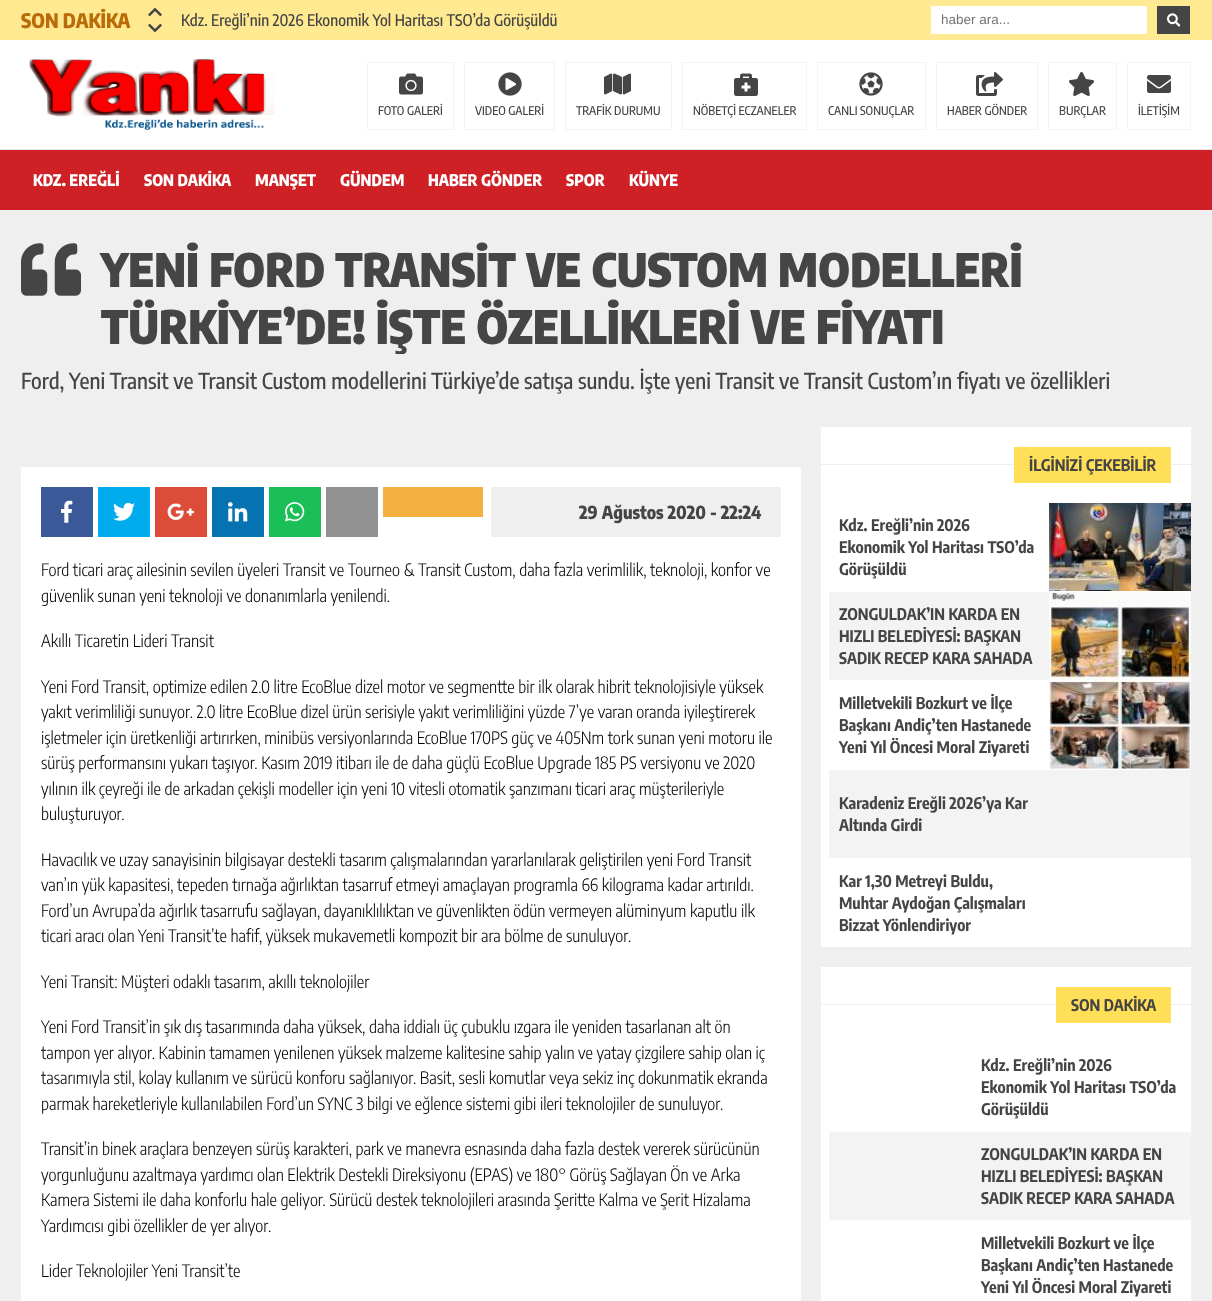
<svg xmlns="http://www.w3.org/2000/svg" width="1212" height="1301">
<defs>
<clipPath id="clip1"><rect x="21" y="240" width="1170" height="114"/></clipPath>
</defs>
<rect width="100%" height="100%" fill="#efefef"/>
<rect width="1212" height="40" fill="#ffe991"/>
<text x="21" y="28" style="font-family:Encode Sans Condensed;font-size:20px;font-weight:800;fill:#b96c09">SON DAKİKA</text>
<image x="148" y="7" width="14" height="10" href="media/1.png"/>
<image x="148" y="23" width="14" height="10" href="media/2.png"/>
<text x="181" y="26" style="font-family:Encode Sans Condensed;font-size:16px;font-weight:500;fill:#454545">Kdz. Ereğli’nin 2026 Ekonomik Yol Haritası TSO’da Görüşüldü</text>
<rect x="931" y="6" width="216" height="28" fill="#fff"/>
<text x="941" y="24" style="font-family:Liberation Sans;font-size:13.5px;fill:#757575">haber ara...</text>
<rect x="1157" y="6" width="33" height="28" fill="#454545"/>
<image x="1167" y="13" width="14" height="14" href="media/3.png"/>
<rect y="40" width="1212" height="109" fill="#fff"/>
<rect y="149" width="1212" height="1" fill="#e6e6e6"/>
<image x="29" y="58" width="246" height="73" href="media/4.png"/>
<image x="399" y="73" width="24" height="22" href="media/5.png"/>
<rect x="367.5" y="62.5" width="86" height="67" fill="none" stroke="#f3f3f3"/>
<text x="378" y="115" style="font-family:Encode Sans Condensed;font-size:12px;font-weight:500;fill:#454545">FOTO GALERİ</text>
<image x="498" y="72" width="24" height="24" href="media/6.png"/>
<rect x="464.5" y="62.5" width="90" height="67" fill="none" stroke="#f3f3f3"/>
<text x="475" y="115" style="font-family:Encode Sans Condensed;font-size:12px;font-weight:500;fill:#454545">VIDEO GALERİ</text>
<image x="604" y="73" width="27" height="22" href="media/7.png"/>
<rect x="565.5" y="62.5" width="106" height="67" fill="none" stroke="#f3f3f3"/>
<text x="576" y="115" style="font-family:Encode Sans Condensed;font-size:12px;font-weight:500;fill:#454545">TRAFİK DURUMU</text>
<image x="734" y="73" width="24" height="23" href="media/8.png"/>
<rect x="682.5" y="62.5" width="124" height="67" fill="none" stroke="#f3f3f3"/>
<text x="693" y="115" style="font-family:Encode Sans Condensed;font-size:12px;font-weight:500;fill:#454545">NÖBETÇİ ECZANELER</text>
<image x="859" y="72" width="24" height="24" href="media/9.png"/>
<rect x="817.5" y="62.5" width="108" height="67" fill="none" stroke="#f3f3f3"/>
<text x="828" y="115" style="font-family:Encode Sans Condensed;font-size:12px;font-weight:500;fill:#454545">CANLI SONUÇLAR</text>
<image x="976" y="72" width="27" height="24" href="media/10.png"/>
<rect x="936.5" y="62.5" width="101" height="67" fill="none" stroke="#f3f3f3"/>
<text x="947" y="115" style="font-family:Encode Sans Condensed;font-size:12px;font-weight:500;fill:#454545">HABER GÖNDER</text>
<image x="1069" y="72" width="25" height="24" href="media/11.png"/>
<rect x="1048.5" y="62.5" width="68" height="67" fill="none" stroke="#f3f3f3"/>
<text x="1059" y="115" style="font-family:Encode Sans Condensed;font-size:12px;font-weight:500;fill:#454545">BURÇLAR</text>
<image x="1147" y="75" width="24" height="18" href="media/12.png"/>
<rect x="1127.5" y="62.5" width="63" height="67" fill="none" stroke="#f3f3f3"/>
<text x="1138" y="115" style="font-family:Encode Sans Condensed;font-size:12px;font-weight:500;fill:#454545">İLETİŞİM</text>
<rect y="150" width="1212" height="60" fill="#ce2025"/>
<text x="33" y="186" style="font-family:Encode Sans Condensed;font-size:16px;font-weight:800;fill:#fff">KDZ. EREĞLİ</text>
<text x="144" y="186" style="font-family:Encode Sans Condensed;font-size:16px;font-weight:800;fill:#fff">SON DAKİKA</text>
<text x="255" y="186" style="font-family:Encode Sans Condensed;font-size:16px;font-weight:800;fill:#fff">MANŞET</text>
<text x="340" y="186" style="font-family:Encode Sans Condensed;font-size:16px;font-weight:800;fill:#fff">GÜNDEM</text>
<text x="428" y="186" style="font-family:Encode Sans Condensed;font-size:16px;font-weight:800;fill:#fff">HABER GÖNDER</text>
<text x="566" y="186" style="font-family:Encode Sans Condensed;font-size:16px;font-weight:800;fill:#fff">SPOR</text>
<text x="629" y="186" style="font-family:Encode Sans Condensed;font-size:16px;font-weight:800;fill:#fff">KÜNYE</text>
<image x="21" y="243" width="60" height="53" href="media/13.png"/>
<text x="101" y="287" style="font-family:Encode Sans Condensed;font-size:46px;font-weight:900;fill:#454545">YENİ FORD TRANSİT VE CUSTOM MODELLERİ</text>
<g clip-path="url(#clip1)">
<text x="101" y="344" style="font-family:Encode Sans Condensed;font-size:46px;font-weight:900;fill:#454545">TÜRKİYE’DE! İŞTE ÖZELLİKLERİ VE FİYATI</text>
</g>
<text x="21" y="389" style="font-family:Encode Sans Condensed;font-size:22px;font-weight:500;fill:#454545">Ford, Yeni Transit ve Transit Custom modellerini Türkiye’de satışa sundu. İşte yeni Transit ve Transit Custom’ın fiyatı ve özellikleri</text>
<rect x="21" y="467" width="780" height="834" fill="#fff"/>
<rect x="41" y="487" width="52" height="50" fill="#3b5998"/>
<image x="61" y="500" width="12" height="23" href="media/14.png"/>
<rect x="98" y="487" width="52" height="50" fill="#00aced"/>
<image x="113" y="502" width="22" height="19" href="media/15.png"/>
<rect x="155" y="487" width="52" height="50" fill="#dd4b39"/>
<image x="167" y="503" width="27" height="17" href="media/16.png"/>
<rect x="212" y="487" width="52" height="50" fill="#0573b1"/>
<image x="228" y="502" width="20" height="20" href="media/17.png"/>
<rect x="269" y="487" width="52" height="50" fill="#1bbf58"/>
<image x="285" y="502" width="20" height="20" href="media/18.png"/>
<rect x="326" y="487" width="52" height="50" fill="#929292"/>
<rect x="383" y="487" width="100" height="30" fill="#f4b140"/>
<rect x="491" y="487" width="290" height="50" fill="#efefef"/>
<text x="579" y="519" style="font-family:Encode Sans Condensed;font-size:18px;font-weight:800;fill:#454545">29 Ağustos 2020 - 22:24</text>
<text x="41" y="576" style="font-family:Encode Sans Condensed;font-size:17px;font-weight:300;fill:#000">Ford ticari araç ailesinin sevilen üyeleri Transit ve Tourneo &amp; Transit Custom, daha fazla verimlilik, teknoloji, konfor ve</text>
<text x="41" y="602" style="font-family:Encode Sans Condensed;font-size:17px;font-weight:300;fill:#000">güvenlik sunan yeni teknoloji ve donanımlarla yenilendi.</text>
<text x="41" y="647" style="font-family:Encode Sans Condensed;font-size:17px;font-weight:300;fill:#000">Akıllı Ticaretin Lideri Transit</text>
<text x="41" y="693" style="font-family:Encode Sans Condensed;font-size:17px;font-weight:300;fill:#000">Yeni Ford Transit, optimize edilen 2.0 litre EcoBlue dizel motor ve segmentte bir ilk olarak hibrit teknolojisiyle yüksek</text>
<text x="41" y="718" style="font-family:Encode Sans Condensed;font-size:17px;font-weight:300;fill:#000">yakıt verimliliği sunuyor. 2.0 litre EcoBlue dizel ürün serisiyle yakıt verimliliğini yüzde 7’ye varan oranda iyileştirerek</text>
<text x="41" y="744" style="font-family:Encode Sans Condensed;font-size:17px;font-weight:300;fill:#000">işletmeler için üretkenliği artırırken, minibüs versiyonlarında EcoBlue 170PS güç ve 405Nm tork sunan yeni motoru ile</text>
<text x="41" y="769" style="font-family:Encode Sans Condensed;font-size:17px;font-weight:300;fill:#000">sürüş performansını yukarı taşıyor. Kasım 2019 itibarı ile de daha güçlü EcoBlue Upgrade 185 PS versiyonu ve 2020</text>
<text x="41" y="795" style="font-family:Encode Sans Condensed;font-size:17px;font-weight:300;fill:#000">yılının ilk çeyreği ile de arkadan çekişli modeller için yeni 10 vitesli otomatik şanzımanı ticari araç müşterileriyle</text>
<text x="41" y="820" style="font-family:Encode Sans Condensed;font-size:17px;font-weight:300;fill:#000">buluşturuyor.</text>
<text x="41" y="866" style="font-family:Encode Sans Condensed;font-size:17px;font-weight:300;fill:#000">Havacılık ve uzay sanayisinin bilgisayar destekli tasarım çalışmalarından yararlanılarak geliştirilen yeni Ford Transit</text>
<text x="41" y="891" style="font-family:Encode Sans Condensed;font-size:17px;font-weight:300;fill:#000">van’ın yük kapasitesi, tepeden tırnağa ağırlıktan tasarruf etmeyi amaçlayan programla 66 kilograma kadar artırıldı.</text>
<text x="41" y="917" style="font-family:Encode Sans Condensed;font-size:17px;font-weight:300;fill:#000">Ford’un Avrupa’da ağırlık tasarrufu sağlayan, dayanıklılıktan ve güvenlikten ödün vermeyen alüminyum kaputlu ilk</text>
<text x="41" y="942" style="font-family:Encode Sans Condensed;font-size:17px;font-weight:300;fill:#000">ticari aracı olan Yeni Transit’te hafif, yüksek mukavemetli kompozit bir ara bölme de sunuluyor.</text>
<text x="41" y="988" style="font-family:Encode Sans Condensed;font-size:17px;font-weight:300;fill:#000">Yeni Transit: Müşteri odaklı tasarım, akıllı teknolojiler</text>
<text x="41" y="1033" style="font-family:Encode Sans Condensed;font-size:17px;font-weight:300;fill:#000">Yeni Ford Transit’in şık dış tasarımında daha yüksek, daha iddialı üç çubuklu ızgara ile yeniden tasarlanan alt ön</text>
<text x="41" y="1059" style="font-family:Encode Sans Condensed;font-size:17px;font-weight:300;fill:#000">tampon yer alıyor. Kabinin tamamen yenilenen yüksek malzeme kalitesine sahip yalın ve yatay çizgilere sahip olan iç</text>
<text x="41" y="1084" style="font-family:Encode Sans Condensed;font-size:17px;font-weight:300;fill:#000">tasarımıyla stil, kolay kullanım ve sürücü konforu sağlanıyor. Basit, sesli komutlar veya sekiz inç dokunmatik ekranda</text>
<text x="41" y="1110" style="font-family:Encode Sans Condensed;font-size:17px;font-weight:300;fill:#000">parmak hareketleriyle kullanılabilen Ford’un SYNC 3 bilgi ve eğlence sistemi gibi ileri teknolojiler de sunuluyor.</text>
<text x="41" y="1155" style="font-family:Encode Sans Condensed;font-size:17px;font-weight:300;fill:#000">Transit’in binek araçlara benzeyen sürüş karakteri, park ve manevra esnasında daha fazla destek vererek sürücünün</text>
<text x="41" y="1181" style="font-family:Encode Sans Condensed;font-size:17px;font-weight:300;fill:#000">yorgunluğunu azaltmaya yardımcı olan Elektrik Destekli Direksiyonu (EPAS) ve 180° Görüş Sağlayan Ön ve Arka</text>
<text x="41" y="1206" style="font-family:Encode Sans Condensed;font-size:17px;font-weight:300;fill:#000">Kamera Sistemi ile daha konforlu hale geliyor. Sürücü destek teknolojileri arasında Şeritte Kalma ve Şerit Hizalama</text>
<text x="41" y="1232" style="font-family:Encode Sans Condensed;font-size:17px;font-weight:300;fill:#000">Yardımcısı gibi özellikler de yer alıyor.</text>
<text x="41" y="1277" style="font-family:Encode Sans Condensed;font-size:17px;font-weight:300;fill:#000">Lider Teknolojiler Yeni Transit’te</text>
<rect x="821" y="427" width="370" height="520" fill="#fff"/>
<rect x="821" y="464" width="370" height="1" fill="#efefef"/>
<rect x="1014" y="447" width="157" height="36" fill="#ffde58"/>
<text x="1029" y="471" style="font-family:Encode Sans Condensed;font-size:16px;font-weight:bold;fill:#454545">İLGİNİZİ ÇEKEBİLİR</text>
<text x="839" y="531" style="font-family:Encode Sans Condensed;font-size:16px;font-weight:bold;fill:#454545">Kdz. Ereğli’nin 2026</text>
<text x="839" y="553" style="font-family:Encode Sans Condensed;font-size:16px;font-weight:bold;fill:#454545">Ekonomik Yol Haritası TSO’da</text>
<text x="839" y="575" style="font-family:Encode Sans Condensed;font-size:16px;font-weight:bold;fill:#454545">Görüşüldü</text>
<image x="1049" y="503" width="142" height="88" href="media/19.png"/>
<rect x="829" y="592" width="220" height="88" fill="#f3f3f3"/>
<text x="839" y="620" style="font-family:Encode Sans Condensed;font-size:16px;font-weight:bold;fill:#454545">ZONGULDAK’IN KARDA EN</text>
<text x="839" y="642" style="font-family:Encode Sans Condensed;font-size:16px;font-weight:bold;fill:#454545">HIZLI BELEDİYESİ: BAŞKAN</text>
<text x="839" y="664" style="font-family:Encode Sans Condensed;font-size:16px;font-weight:bold;fill:#454545">SADIK RECEP KARA SAHADA</text>
<image x="1049" y="592" width="142" height="88" href="media/20.png"/>
<text x="839" y="709" style="font-family:Encode Sans Condensed;font-size:16px;font-weight:bold;fill:#454545">Milletvekili Bozkurt ve İlçe</text>
<text x="839" y="731" style="font-family:Encode Sans Condensed;font-size:16px;font-weight:bold;fill:#454545">Başkanı Andiç’ten Hastanede</text>
<text x="839" y="753" style="font-family:Encode Sans Condensed;font-size:16px;font-weight:bold;fill:#454545">Yeni Yıl Öncesi Moral Ziyareti</text>
<image x="1049" y="681" width="142" height="88" href="media/21.png"/>
<rect x="829" y="770" width="362" height="88" fill="#f3f3f3"/>
<text x="839" y="809" style="font-family:Encode Sans Condensed;font-size:16px;font-weight:bold;fill:#454545">Karadeniz Ereğli 2026’ya Kar</text>
<text x="839" y="831" style="font-family:Encode Sans Condensed;font-size:16px;font-weight:bold;fill:#454545">Altında Girdi</text>
<text x="839" y="887" style="font-family:Encode Sans Condensed;font-size:16px;font-weight:bold;fill:#454545">Kar 1,30 Metreyi Buldu,</text>
<text x="839" y="909" style="font-family:Encode Sans Condensed;font-size:16px;font-weight:bold;fill:#454545">Muhtar Aydoğan Çalışmaları</text>
<text x="839" y="931" style="font-family:Encode Sans Condensed;font-size:16px;font-weight:bold;fill:#454545">Bizzat Yönlendiriyor</text>
<rect x="821" y="967" width="370" height="334" fill="#fff"/>
<rect x="821" y="1004" width="370" height="1" fill="#efefef"/>
<rect x="1056" y="987" width="115" height="36" fill="#ffde58"/>
<text x="1071" y="1011" style="font-family:Encode Sans Condensed;font-size:16px;font-weight:bold;fill:#454545">SON DAKİKA</text>
<text x="981" y="1071" style="font-family:Encode Sans Condensed;font-size:16px;font-weight:bold;fill:#454545">Kdz. Ereğli’nin 2026</text>
<text x="981" y="1093" style="font-family:Encode Sans Condensed;font-size:16px;font-weight:bold;fill:#454545">Ekonomik Yol Haritası TSO’da</text>
<text x="981" y="1115" style="font-family:Encode Sans Condensed;font-size:16px;font-weight:bold;fill:#454545">Görüşüldü</text>
<rect x="829" y="1132" width="362" height="88" fill="#f3f3f3"/>
<text x="981" y="1160" style="font-family:Encode Sans Condensed;font-size:16px;font-weight:bold;fill:#454545">ZONGULDAK’IN KARDA EN</text>
<text x="981" y="1182" style="font-family:Encode Sans Condensed;font-size:16px;font-weight:bold;fill:#454545">HIZLI BELEDİYESİ: BAŞKAN</text>
<text x="981" y="1204" style="font-family:Encode Sans Condensed;font-size:16px;font-weight:bold;fill:#454545">SADIK RECEP KARA SAHADA</text>
<text x="981" y="1249" style="font-family:Encode Sans Condensed;font-size:16px;font-weight:bold;fill:#454545">Milletvekili Bozkurt ve İlçe</text>
<text x="981" y="1271" style="font-family:Encode Sans Condensed;font-size:16px;font-weight:bold;fill:#454545">Başkanı Andiç’ten Hastanede</text>
<text x="981" y="1293" style="font-family:Encode Sans Condensed;font-size:16px;font-weight:bold;fill:#454545">Yeni Yıl Öncesi Moral Ziyareti</text>
</svg>
